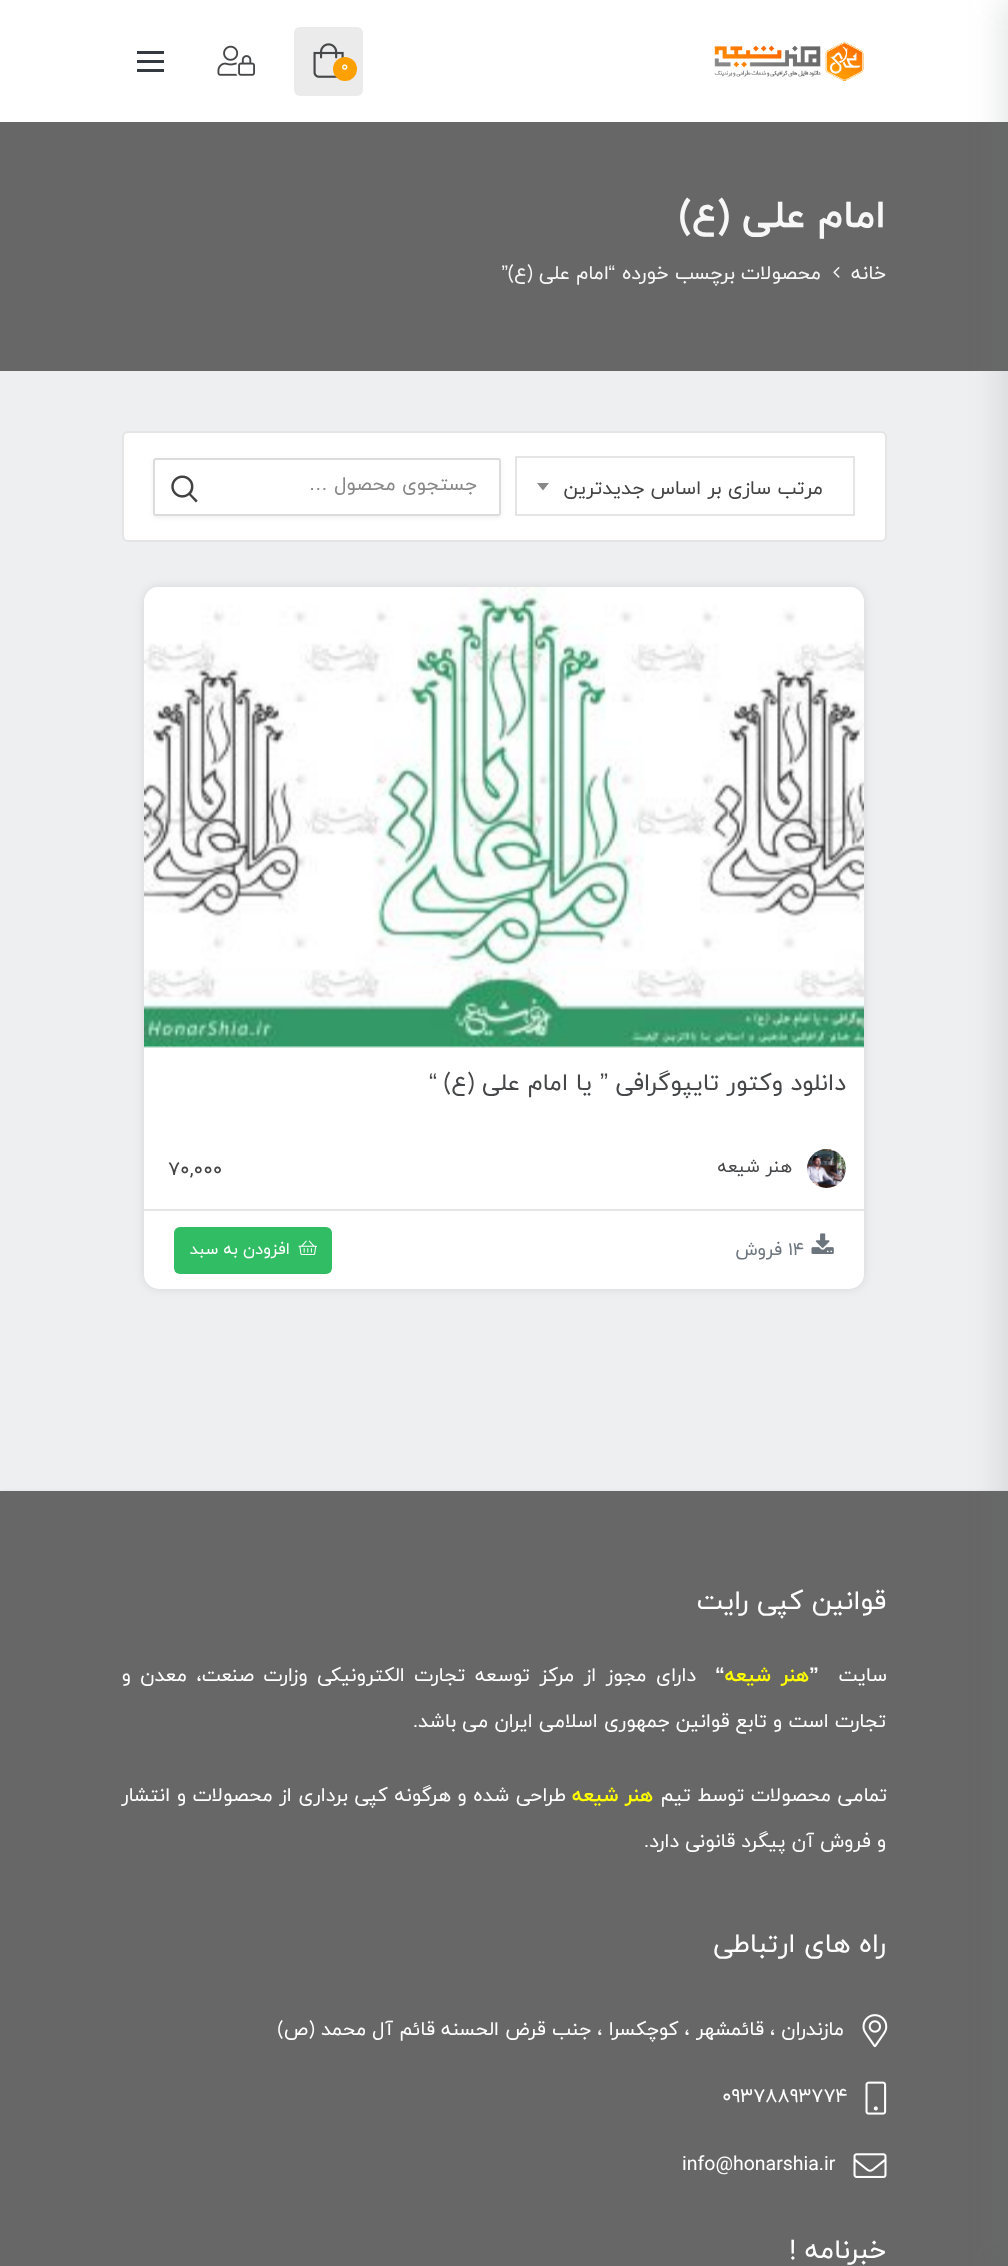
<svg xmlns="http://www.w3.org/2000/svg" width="1008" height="2266">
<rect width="100%" height="100%" fill="#676767"/>
<rect width="1008" height="122" fill="#fff"/>
<rect y="371" width="1008" height="1120" fill="#eeeff1"/>
<rect x="2" y="1493" width="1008" height="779" fill="#00000033" filter="blur(2px)"/>
<rect y="1491" width="1008" height="775" fill="#676767"/>
<rect x="999" width="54" height="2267" fill="#73767f2b" filter="blur(15px)"/>
<image x="714" y="42" width="150" height="39" href="media/1.png"/>
<rect x="294" y="27" width="69" height="69" rx="6" fill="#ebebeb"/>
<image x="313" y="43" width="31" height="35" href="media/2.png"/>
<circle cx="345" cy="69" r="12" fill="#fea000"/>
<text x="341" y="71" style="font-family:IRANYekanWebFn;font-size:15px;fill:#fff">0</text>
<image x="217" y="45" width="38" height="31" href="media/3.png"/>
<rect x="137" y="60" width="27" height="3" fill="#343a40"/>
<rect x="137" y="51" width="27" height="3" fill="#343a40"/>
<rect x="137" y="69" width="27" height="3" fill="#343a40"/>
<text x="886" y="227" style="font-family:IRANYekanWebFn;font-size:39px;font-weight:bold;direction:rtl;fill:#f7f7f7">امام علی (ع)</text>
<text x="886" y="279" style="font-family:IRANYekanWebFn;font-size:19.5px;direction:rtl;fill:#f7f7f7">خانه</text>
<image x="833" y="267" width="7" height="11" href="media/4.png"/>
<text x="821" y="279" style="font-family:IRANYekanWebFn;font-size:19.5px;direction:rtl;fill:#f7f7f7">محصولات برچسب خورده</text>
<text x="615" y="279" style="font-family:Liberation Sans;font-size:19.5px;direction:rtl;fill:#f7f7f7">“</text>
<text x="609" y="279" style="font-family:IRANYekanWebFn;font-size:19.5px;direction:rtl;fill:#f7f7f7">امام علی (ع)</text>
<text x="508" y="279" style="font-family:Liberation Sans;font-size:19.5px;direction:rtl;fill:#f7f7f7">”</text>
<rect x="123" y="432" width="763" height="109" rx="5" fill="#fff" stroke="#e5e5e5" stroke-width="2"/>
<rect x="516" y="457" width="338" height="58" fill="none" stroke="#e5e5e5" stroke-width="2"/>
<text x="823" y="494" style="font-family:IRANYekanWebFn;font-size:19.5px;direction:rtl;fill:#434343">مرتب سازی بر اساس جدیدترین</text>
<path d="M537 483h12l-6 7.5z" fill="#888"/>
<rect x="153" y="459" width="348" height="59" rx="3" fill="#0000000f" filter="blur(2px)"/>
<rect x="154" y="459" width="346" height="56" rx="2" fill="#fff" stroke="#dcdcdc" stroke-width="2"/>
<text x="477" y="490" style="font-family:IRANYekanWebFn;font-size:19.5px;direction:rtl;fill:#888">جستجوی محصول</text>
<text x="328" y="490" style="font-family:Liberation Sans;font-size:19.5px;direction:rtl;fill:#888">…</text>
<image x="171" y="475" width="27" height="28" href="media/5.png"/>
<rect x="144" y="587" width="720" height="702" rx="15" fill="#0000001a" filter="blur(5px)"/>
<rect x="144" y="587" width="720" height="702" rx="15" fill="#fff"/>
<image x="144" y="587" width="720" height="461" href="media/6.png"/>
<text x="846" y="1090" style="font-family:IRANYekanWebFn;font-size:24px;direction:rtl;fill:#464749">دانلود وکتور تایپوگرافی</text>
<text x="608" y="1090" style="font-family:Liberation Sans;font-size:24px;direction:rtl;fill:#464749">”</text>
<text x="592" y="1090" style="font-family:IRANYekanWebFn;font-size:24px;direction:rtl;fill:#464749">یا امام علی (ع)</text>
<text x="437" y="1090" style="font-family:Liberation Sans;font-size:24px;direction:rtl;fill:#464749">“</text>
<image x="807" y="1149" width="39" height="39" href="media/7.png"/>
<text x="792" y="1172" style="font-family:IRANYekanWebFn;font-size:18px;direction:rtl;fill:#464749">هنر شیعه</text>
<text x="168" y="1175" style="font-family:IRANYekanWebFn;font-size:19.5px;fill:#434343">۷۰,۰۰۰</text>
<rect x="144" y="1209" width="720" height="2" fill="#e5e5e5"/>
<image x="811" y="1233" width="23" height="21" href="media/8.png"/>
<text x="788" y="1255" style="font-family:IRANYekanWebFn;font-size:18px;fill:#6c757d">14</text>
<text x="782" y="1255" style="font-family:IRANYekanWebFn;font-size:18px;direction:rtl;fill:#6c757d">فروش</text>
<rect x="174" y="1227" width="158" height="47" rx="6" fill="#30bd64"/>
<image x="298" y="1240" width="20" height="15" href="media/9.png"/>
<text x="290" y="1254" style="font-family:IRANYekanWebFn;font-size:16.5px;direction:rtl;fill:#fff">افزودن به سبد</text>
<text x="886" y="1609" style="font-family:IRANYekanWebFn;font-size:27px;direction:rtl;fill:#fff">قوانین کپی رایت</text>
<text x="887" y="1681" style="font-family:IRANYekanWebFn;font-size:19.5px;direction:rtl;fill:#fff">سایت</text>
<text x="809" y="1681" style="font-family:Liberation Sans;font-size:19.5px;font-weight:bold;fill:#fff">”</text>
<text x="809" y="1681" word-spacing="3.4" style="font-family:IRANYekanWebFn;font-size:19.5px;font-weight:bold;direction:rtl;fill:#ff0">هنر شیعه</text>
<text x="715" y="1681" style="font-family:Liberation Sans;font-size:19.5px;font-weight:bold;fill:#fff">“</text>
<text x="696" y="1681" word-spacing="3.4" style="font-family:IRANYekanWebFn;font-size:19.5px;direction:rtl;fill:#fff">دارای مجوز از مرکز توسعه تجارت الکترونیکی وزارت صنعت، معدن و</text>
<text x="886" y="1727" style="font-family:IRANYekanWebFn;font-size:19.5px;direction:rtl;fill:#fff">تجارت است و تابع قوانین جمهوری اسلامی ایران می باشد.</text>
<text x="887" y="1801" word-spacing="0.5" style="font-family:IRANYekanWebFn;font-size:19.5px;direction:rtl;fill:#fff">تمامی محصولات توسط تیم</text>
<text x="653" y="1801" style="font-family:IRANYekanWebFn;font-size:19.5px;font-weight:bold;direction:rtl;fill:#ff0">هنر شیعه</text>
<text x="566" y="1801" word-spacing="0.5" style="font-family:IRANYekanWebFn;font-size:19.5px;direction:rtl;fill:#fff">طراحی شده و هرگونه کپی برداری از محصولات و انتشار</text>
<text x="886" y="1847" style="font-family:IRANYekanWebFn;font-size:19.5px;direction:rtl;fill:#fff">و فروش آن پیگرد قانونی دارد.</text>
<text x="886" y="1952" style="font-family:IRANYekanWebFn;font-size:27px;direction:rtl;fill:#fff">راه های ارتباطی</text>
<image x="862" y="2014" width="26" height="34" href="media/10.png"/>
<text x="844" y="2035" style="font-family:IRANYekanWebFn;font-size:19.5px;direction:rtl;fill:#fff">مازندران ، قائمشهر ، کوچکسرا ، جنب قرض الحسنه قائم آل محمد (ص)</text>
<image x="865" y="2081" width="22" height="34" href="media/11.png"/>
<text x="722" y="2102" style="font-family:IRANYekanWebFn;font-size:19.5px;fill:#fff">09378893774</text>
<image x="853" y="2153" width="34" height="25" href="media/12.png"/>
<text x="682" y="2170" style="font-family:IRANYekanWebFn;font-size:19.5px;fill:#fff">info@honarshia.ir</text>
<text x="886" y="2258" style="font-family:IRANYekanWebFn;font-size:27px;direction:rtl;fill:#fff">خبرنامه !</text>
</svg>
